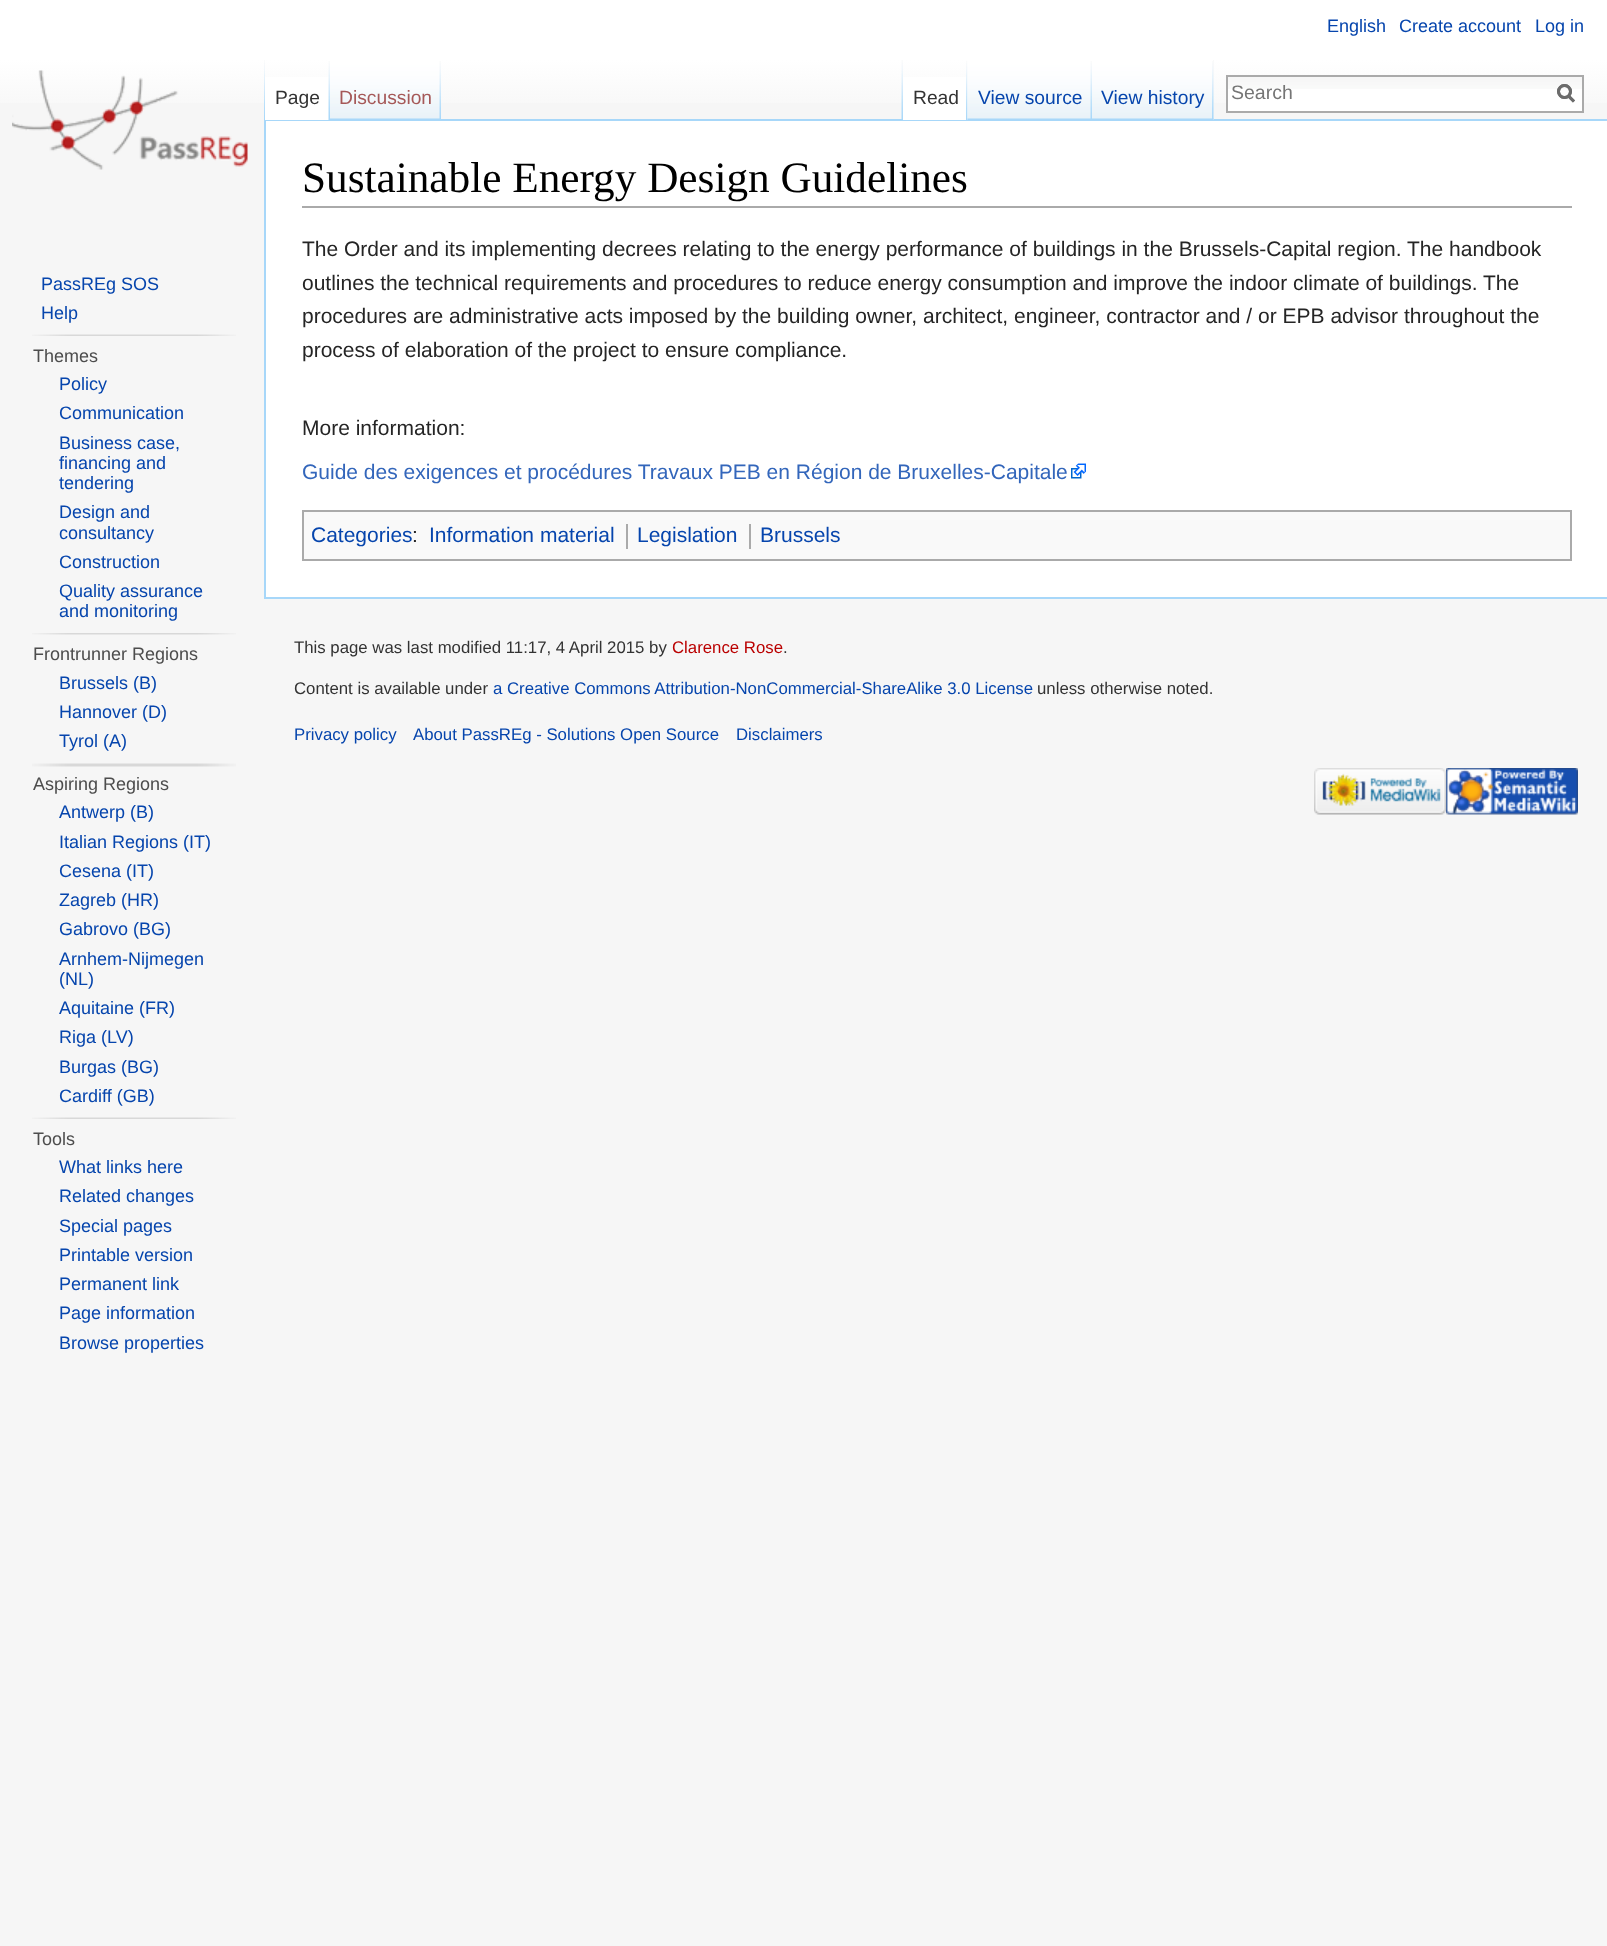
<svg xmlns="http://www.w3.org/2000/svg" width="1607" height="1946">
<defs>
<linearGradient id="g1" gradientUnits="userSpaceOnUse" x1="804" y1="0" x2="804" y2="120"><stop offset="0.5" stop-color="#fff"/><stop offset="1" stop-color="#f6f6f6"/></linearGradient>
</defs>
<rect width="100%" height="100%" fill="#f6f6f6"/>
<rect width="1607" height="103" fill="url(#g1)"/>
<text x="1327" y="32" style="font-family:Liberation Sans;font-size:18px;fill:#0645ad">English</text>
<text x="1399" y="32" style="font-family:Liberation Sans;font-size:18px;fill:#0645ad">Create account</text>
<text x="1535" y="32" style="font-family:Liberation Sans;font-size:18px;fill:#0645ad">Log in</text>
<image x="264" y="60" width="1" height="59" href="media/1.png"/>
<rect x="264" y="119" width="1343" height="2" fill="#a7d7f9"/>
<rect x="264" y="597" width="1343" height="2" fill="#a7d7f9"/>
<rect x="264" y="119" width="2" height="480" fill="#a7d7f9"/>
<rect x="265" y="77" width="65" height="43" fill="#fff"/>
<image x="328" y="61" width="2" height="59" href="media/2.png"/>
<text x="275" y="104" style="font-family:Liberation Sans;font-size:19.25px;fill:#333">Page</text>
<image x="330" y="60" width="111" height="60" href="media/3.png"/>
<image x="439" y="61" width="2" height="58" href="media/4.png"/>
<text x="339" y="104" style="font-family:Liberation Sans;font-size:19.25px;fill:#a55858">Discussion</text>
<image x="901" y="60" width="2" height="59" href="media/5.png"/>
<rect x="903" y="77" width="65" height="43" fill="#fff"/>
<image x="966" y="61" width="2" height="59" href="media/6.png"/>
<text x="913" y="104" style="font-family:Liberation Sans;font-size:19.25px;fill:#333">Read</text>
<image x="967" y="60" width="125" height="60" href="media/7.png"/>
<image x="1090" y="61" width="2" height="58" href="media/4.png"/>
<text x="978" y="104" style="font-family:Liberation Sans;font-size:19.25px;fill:#0645ad">View source</text>
<rect x="1213" y="60" width="1" height="60" fill="#f3f3f3"/>
<image x="1092" y="60" width="122" height="60" href="media/8.png"/>
<image x="1212" y="61" width="2" height="59" href="media/9.png"/>
<text x="1101" y="104" style="font-family:Liberation Sans;font-size:19.25px;fill:#0645ad">View history</text>
<rect x="1228" y="89" width="354" height="22" fill="#fff"/>
<image x="1228" y="77" width="354" height="12" href="media/10.png"/>
<rect x="1227" y="76" width="356" height="36" fill="none" stroke="#aaa" stroke-width="2"/>
<text x="1231" y="99" style="font-family:Liberation Sans;font-size:19.5px;fill:#757575">Search</text>
<path d="M1574 101.5l-6-6" fill="none" stroke="#6c6c6c" stroke-width="3"/>
<circle cx="1564.5" cy="91.5" r="6" fill="none" stroke="#6c6c6c" stroke-width="3"/>
<path d="M1574 101.5l-6-6" fill="none" stroke="#6c6c6c" stroke-width="3"/>
<circle cx="1564.5" cy="91.5" r="6" fill="none" stroke="#6c6c6c" stroke-width="3"/>
<image x="12" y="70" width="236" height="100" href="media/11.png"/>
<text x="41" y="290" style="font-family:Liberation Sans;font-size:18px;fill:#0645ad">PassREg SOS</text>
<text x="41" y="319" style="font-family:Liberation Sans;font-size:18px;fill:#0645ad">Help</text>
<image x="32" y="334" width="204" height="2" href="media/12.png"/>
<text x="33" y="362" style="font-family:Liberation Sans;font-size:18px;fill:#4d4d4d">Themes</text>
<text x="59" y="390" style="font-family:Liberation Sans;font-size:18px;fill:#0645ad">Policy</text>
<text x="59" y="419" style="font-family:Liberation Sans;font-size:18px;fill:#0645ad">Communication</text>
<text x="59" y="449" style="font-family:Liberation Sans;font-size:18px;fill:#0645ad">Business case,</text>
<text x="59" y="469" style="font-family:Liberation Sans;font-size:18px;fill:#0645ad">financing and</text>
<text x="59" y="489" style="font-family:Liberation Sans;font-size:18px;fill:#0645ad">tendering</text>
<text x="59" y="518" style="font-family:Liberation Sans;font-size:18px;fill:#0645ad">Design and</text>
<text x="59" y="539" style="font-family:Liberation Sans;font-size:18px;fill:#0645ad">consultancy</text>
<text x="59" y="568" style="font-family:Liberation Sans;font-size:18px;fill:#0645ad">Construction</text>
<text x="59" y="597" style="font-family:Liberation Sans;font-size:18px;fill:#0645ad">Quality assurance</text>
<text x="59" y="617" style="font-family:Liberation Sans;font-size:18px;fill:#0645ad">and monitoring</text>
<image x="32" y="633" width="204" height="2" href="media/13.png"/>
<text x="33" y="660" style="font-family:Liberation Sans;font-size:18px;fill:#4d4d4d">Frontrunner Regions</text>
<text x="59" y="689" style="font-family:Liberation Sans;font-size:18px;fill:#0645ad">Brussels (B)</text>
<text x="59" y="718" style="font-family:Liberation Sans;font-size:18px;fill:#0645ad">Hannover (D)</text>
<text x="59" y="747" style="font-family:Liberation Sans;font-size:18px;fill:#0645ad">Tyrol (A)</text>
<image x="32" y="763" width="204" height="4" href="media/14.png"/>
<text x="33" y="790" style="font-family:Liberation Sans;font-size:18px;fill:#4d4d4d">Aspiring Regions</text>
<text x="59" y="818" style="font-family:Liberation Sans;font-size:18px;fill:#0645ad">Antwerp (B)</text>
<text x="59" y="848" style="font-family:Liberation Sans;font-size:18px;fill:#0645ad">Italian Regions (IT)</text>
<text x="59" y="877" style="font-family:Liberation Sans;font-size:18px;fill:#0645ad">Cesena (IT)</text>
<text x="59" y="906" style="font-family:Liberation Sans;font-size:18px;fill:#0645ad">Zagreb (HR)</text>
<text x="59" y="935" style="font-family:Liberation Sans;font-size:18px;fill:#0645ad">Gabrovo (BG)</text>
<text x="59" y="965" style="font-family:Liberation Sans;font-size:18px;fill:#0645ad">Arnhem-Nijmegen</text>
<text x="59" y="985" style="font-family:Liberation Sans;font-size:18px;fill:#0645ad">(NL)</text>
<text x="59" y="1014" style="font-family:Liberation Sans;font-size:18px;fill:#0645ad">Aquitaine (FR)</text>
<text x="59" y="1043" style="font-family:Liberation Sans;font-size:18px;fill:#0645ad">Riga (LV)</text>
<text x="59" y="1073" style="font-family:Liberation Sans;font-size:18px;fill:#0645ad">Burgas (BG)</text>
<text x="59" y="1102" style="font-family:Liberation Sans;font-size:18px;fill:#0645ad">Cardiff (GB)</text>
<image x="32" y="1117" width="204" height="2" href="media/12.png"/>
<text x="33" y="1145" style="font-family:Liberation Sans;font-size:18px;fill:#4d4d4d">Tools</text>
<text x="59" y="1173" style="font-family:Liberation Sans;font-size:18px;fill:#0645ad">What links here</text>
<text x="59" y="1202" style="font-family:Liberation Sans;font-size:18px;fill:#0645ad">Related changes</text>
<text x="59" y="1232" style="font-family:Liberation Sans;font-size:18px;fill:#0645ad">Special pages</text>
<text x="59" y="1261" style="font-family:Liberation Sans;font-size:18px;fill:#0645ad">Printable version</text>
<text x="59" y="1290" style="font-family:Liberation Sans;font-size:18px;fill:#0645ad">Permanent link</text>
<text x="59" y="1319" style="font-family:Liberation Sans;font-size:18px;fill:#0645ad">Page information</text>
<text x="59" y="1349" style="font-family:Liberation Sans;font-size:18px;fill:#0645ad">Browse properties</text>
<rect x="266" y="121" width="1341" height="476" fill="#fff"/>
<rect x="302" y="206" width="1270" height="2" fill="#aaa"/>
<text x="302" y="192" style="font-family:Liberation Serif;font-size:43.25px;fill:#000">Sustainable Energy Design Guidelines</text>
<text x="302" y="256" style="font-family:Liberation Sans;font-size:21px;fill:#252525">The Order and its implementing decrees relating to the energy performance of buildings in the Brussels-Capital region. The handbook</text>
<text x="302" y="290" style="font-family:Liberation Sans;font-size:21px;fill:#252525">outlines the technical requirements and procedures to reduce energy consumption and improve the indoor climate of buildings. The</text>
<text x="302" y="323" style="font-family:Liberation Sans;font-size:21px;fill:#252525">procedures are administrative acts imposed by the building owner, architect, engineer, contractor and / or EPB advisor throughout the</text>
<text x="302" y="357" style="font-family:Liberation Sans;font-size:21px;fill:#252525">process of elaboration of the project to ensure compliance.</text>
<text x="302" y="435" style="font-family:Liberation Sans;font-size:21px;fill:#252525">More information:</text>
<text x="302" y="479" style="font-family:Liberation Sans;font-size:21px;fill:#36b">Guide des exigences et procédures Travaux PEB en Région de Bruxelles-Capitale</text>
<image x="1071" y="463" width="15" height="16" href="media/15.png"/>
<rect x="303" y="511" width="1268" height="49" fill="#f9f9f9" stroke="#aaa" stroke-width="2"/>
<text x="311" y="542" style="font-family:Liberation Sans;font-size:21px;fill:#0645ad">Categories</text>
<text x="412" y="542" style="font-family:Liberation Sans;font-size:21px;fill:#252525">:</text>
<text x="429" y="542" style="font-family:Liberation Sans;font-size:21px;fill:#0645ad">Information material</text>
<rect x="626" y="524" width="2" height="25" fill="#aaa"/>
<text x="637" y="542" style="font-family:Liberation Sans;font-size:21px;fill:#0645ad">Legislation</text>
<rect x="749" y="524" width="2" height="25" fill="#aaa"/>
<text x="760" y="542" style="font-family:Liberation Sans;font-size:21px;fill:#0645ad">Brussels</text>
<text x="294" y="653" style="font-family:Liberation Sans;font-size:16.8px;fill:#333">This page was last modified 11:17, 4 April 2015 by</text>
<text x="672" y="653" style="font-family:Liberation Sans;font-size:16.8px;fill:#ba0000">Clarence Rose</text>
<text x="783" y="653" style="font-family:Liberation Sans;font-size:16.8px;fill:#333">.</text>
<text x="294" y="694" style="font-family:Liberation Sans;font-size:16.8px;fill:#333">Content is available under</text>
<text x="493" y="694" style="font-family:Liberation Sans;font-size:16.8px;fill:#0645ad">a Creative Commons Attribution-NonCommercial-ShareAlike 3.0 License</text>
<text x="1037" y="694" style="font-family:Liberation Sans;font-size:16.8px;fill:#333">unless otherwise noted.</text>
<text x="294" y="740" style="font-family:Liberation Sans;font-size:16.8px;fill:#0645ad">Privacy policy</text>
<text x="413" y="740" style="font-family:Liberation Sans;font-size:16.8px;fill:#0645ad">About PassREg - Solutions Open Source</text>
<text x="736" y="740" style="font-family:Liberation Sans;font-size:16.8px;fill:#0645ad">Disclaimers</text>
<image x="1314" y="768" width="132" height="47" href="media/16.png"/>
<image x="1446" y="768" width="132" height="47" href="media/17.png"/>
</svg>
